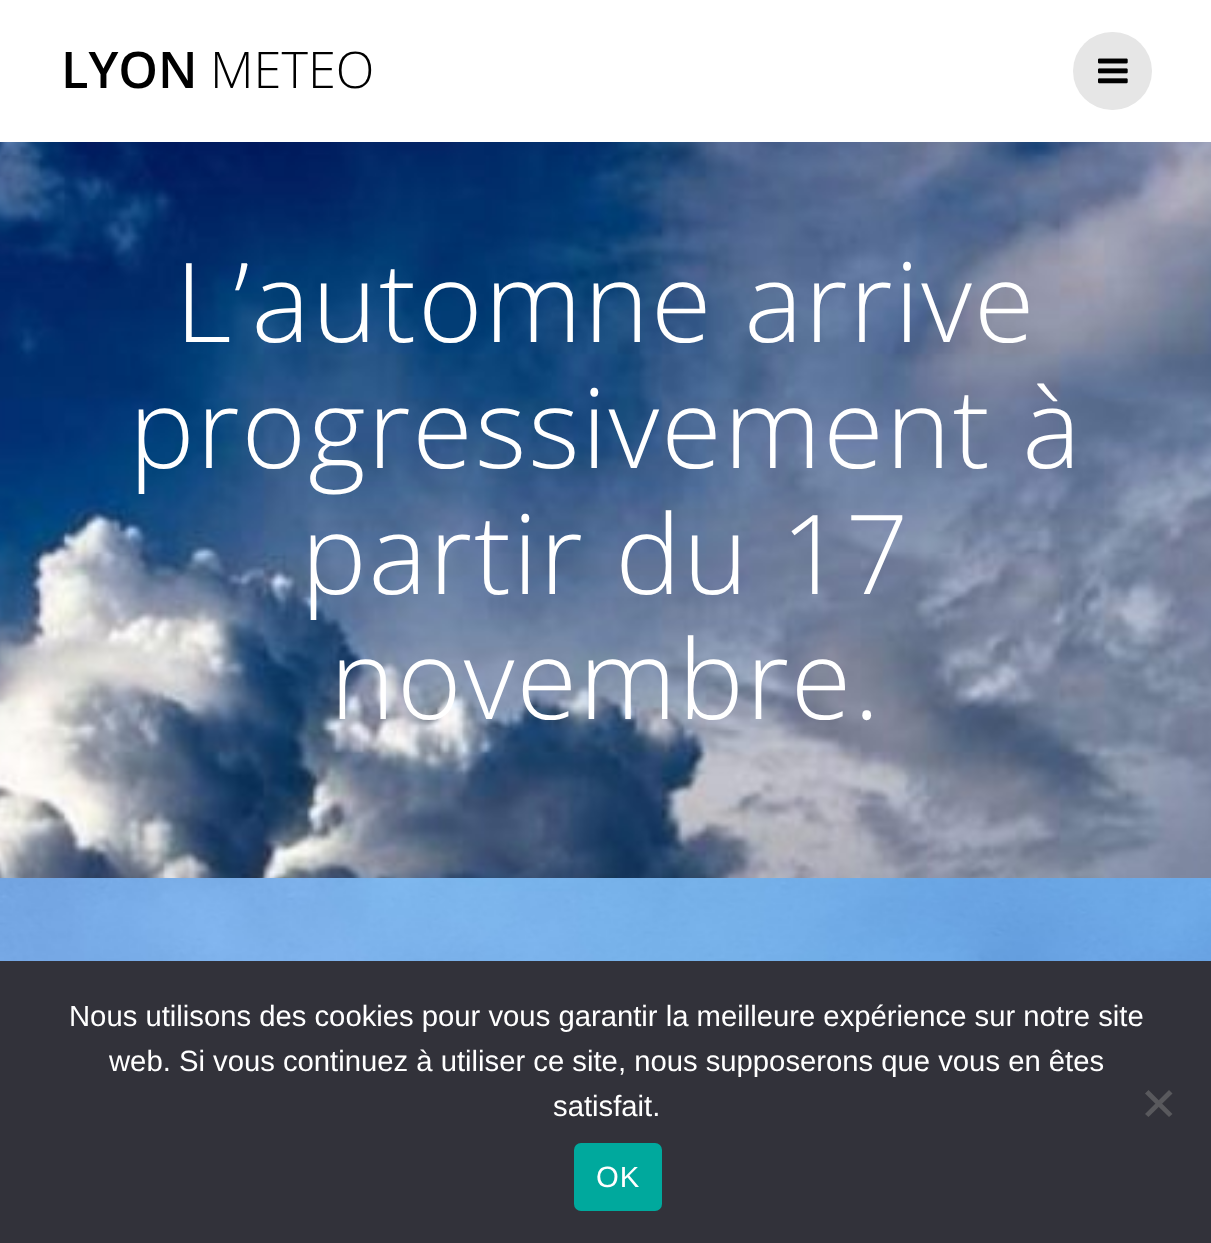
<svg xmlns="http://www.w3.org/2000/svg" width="1211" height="1243">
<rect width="100%" height="100%" fill="#fff"/>
<image x="0" y="878" width="1211" height="83" href="media/1.png"/>
<text x="61" y="88" style="font-family:Open Sans;font-size:50.5px;font-weight:600;fill:#000">LYON</text>
<text x="210" y="88" style="font-family:Open Sans;font-size:50.5px;font-weight:300;fill:#000">METEO</text>
<rect x="1073" y="32" width="79" height="78" rx="39" fill="#e6e6e6"/>
<image x="1098" y="58" width="30" height="26" href="media/2.png"/>
<image x="0" y="142" width="1211" height="736" href="media/3.png"/>
<text x="175" y="342" style="font-family:Open Sans;font-size:110.25px;font-weight:300;letter-spacing:2px;fill:#fff">L’automne arrive</text>
<text x="129" y="468" style="font-family:Open Sans;font-size:110.25px;font-weight:300;letter-spacing:2px;fill:#fff">progressivement à</text>
<text x="301" y="594" style="font-family:Open Sans;font-size:110.25px;font-weight:300;letter-spacing:2px;fill:#fff">partir du 17</text>
<text x="330" y="719" style="font-family:Open Sans;font-size:110.25px;font-weight:300;letter-spacing:2px;fill:#fff">novembre.</text>
<rect y="961" width="1211" height="282" fill="#32323a"/>
<text x="69" y="1026" style="font-family:Liberation Sans;font-size:29.25px;fill:#fff">Nous utilisons des cookies pour vous garantir la meilleure expérience sur notre site</text>
<text x="109" y="1071" style="font-family:Liberation Sans;font-size:29.25px;fill:#fff">web. Si vous continuez à utiliser ce site, nous supposerons que vous en êtes</text>
<text x="553" y="1116" style="font-family:Liberation Sans;font-size:29.25px;fill:#fff">satisfait.</text>
<path d="M1169 1090l3.5 3.5l-24 23.5l-3.5-3z" fill="#59595d"/>
<path d="M1145 1093.5l3.5-3.5l24 24l-3.5 3z" fill="#59595d"/>
<rect x="574" y="1143" width="88" height="68" rx="7" fill="#00a99d"/>
<text x="596" y="1187" style="font-family:Liberation Sans;font-size:29.25px;letter-spacing:1px;fill:#fff">OK</text>
</svg>
